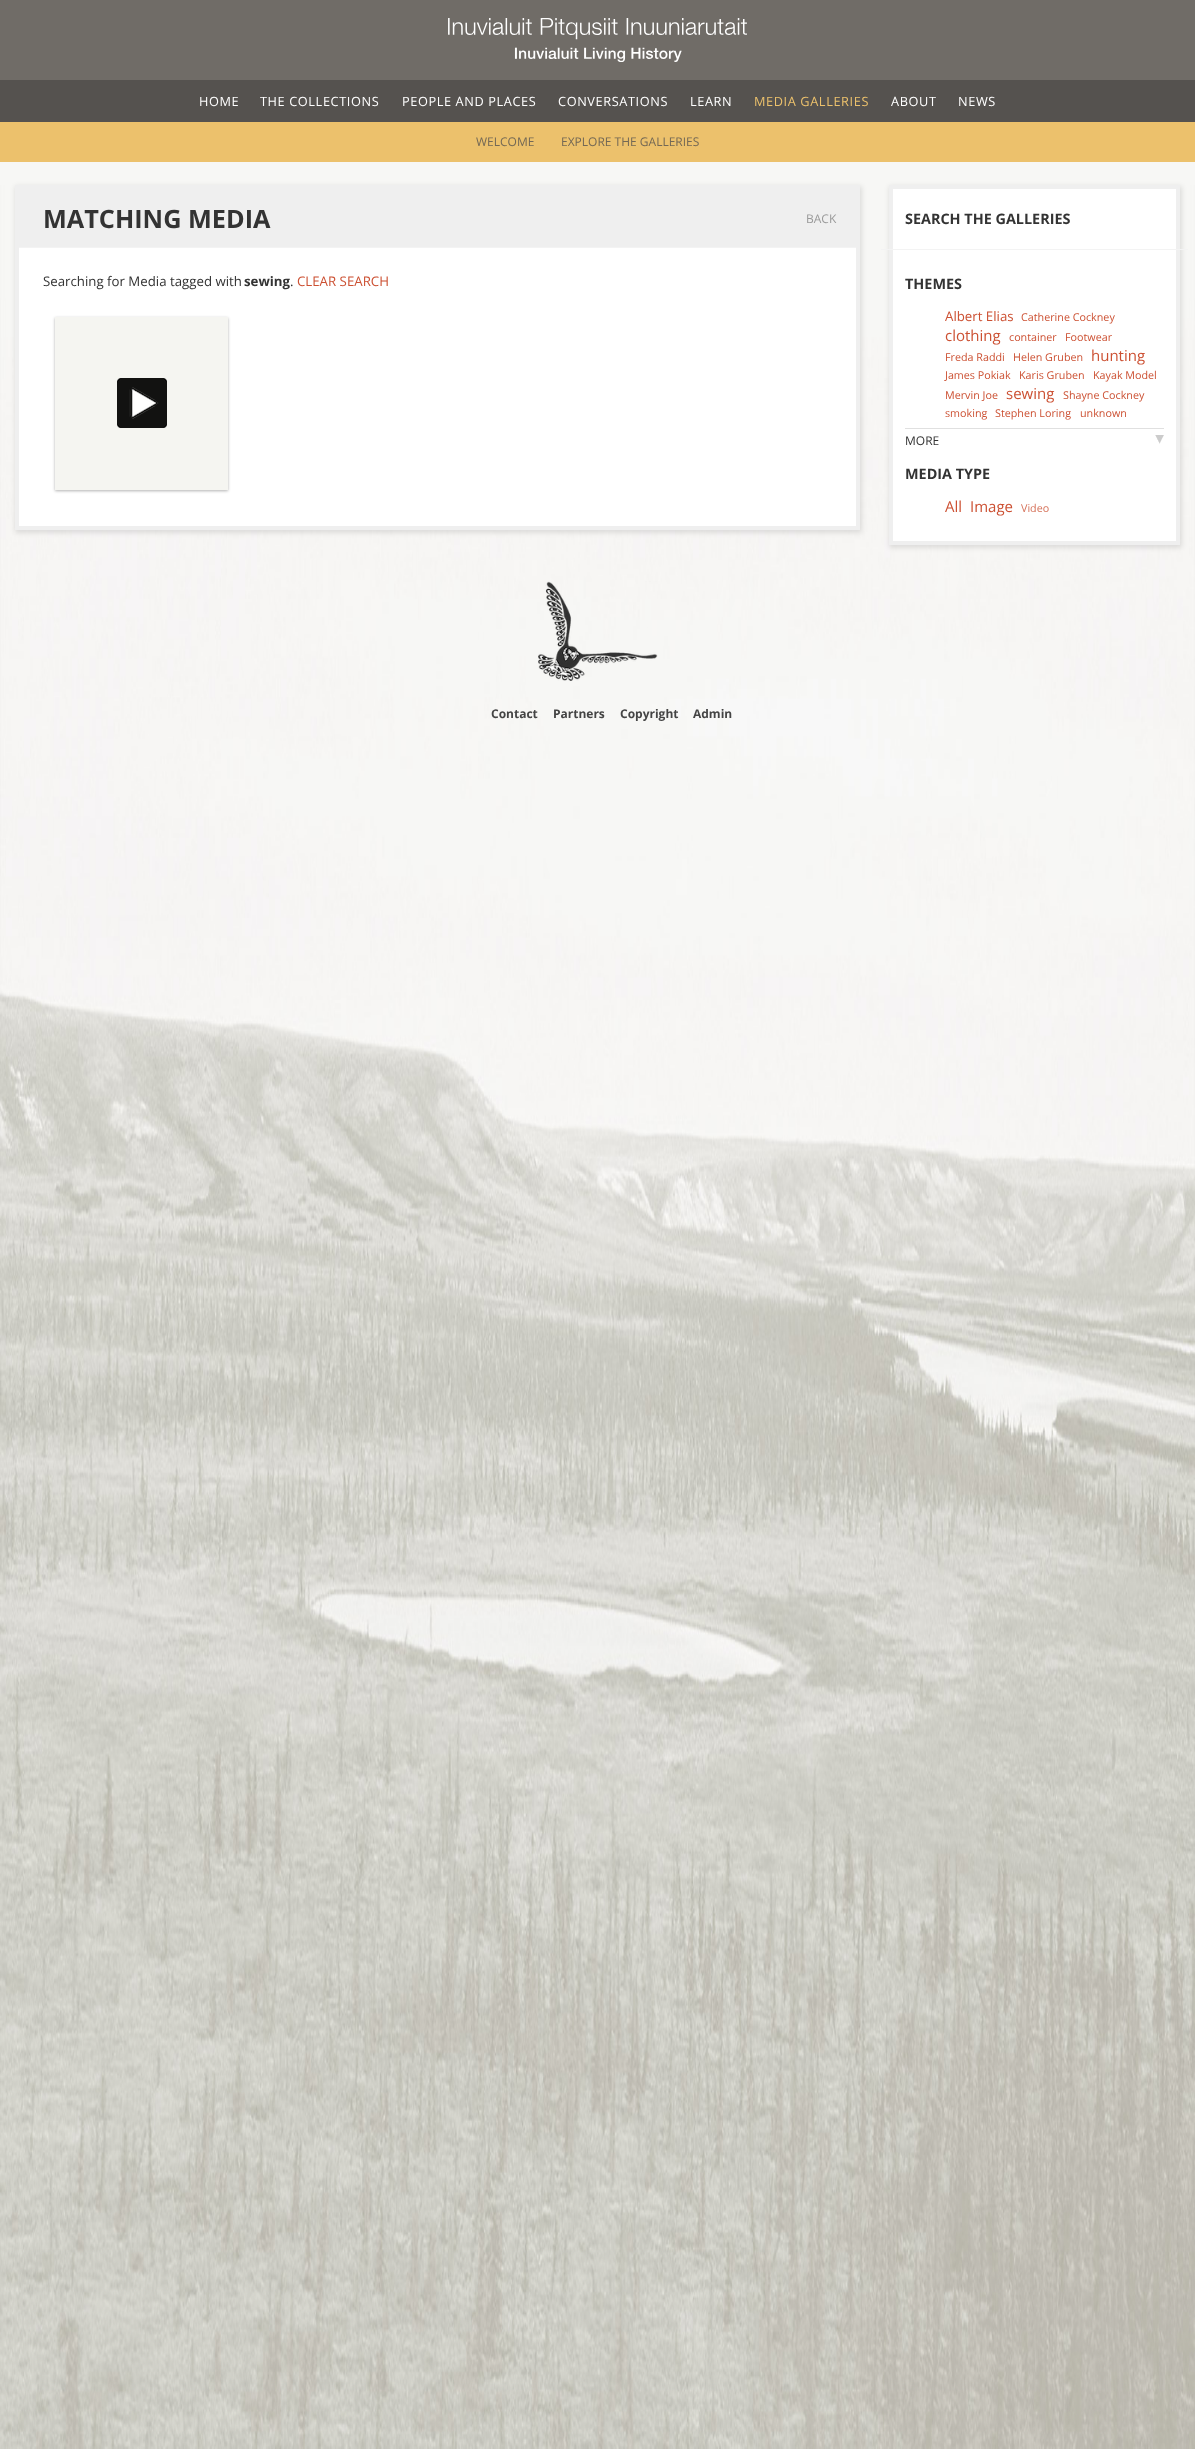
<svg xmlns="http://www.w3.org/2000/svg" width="1195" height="2449">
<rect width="100%" height="100%" fill="#f7f7f5"/>
<rect width="1195" height="80" fill="#706c67"/>
<image x="448" y="18" width="299" height="44" href="media/1.png"/>
<rect y="80" width="1195" height="42" fill="#55524f"/>
<text x="199" y="106" style="font-family:Open Sans;font-size:12.75px;letter-spacing:0.6px;fill:#fff">HOME</text>
<text x="260" y="106" style="font-family:Open Sans;font-size:12.75px;letter-spacing:0.6px;fill:#fff">THE COLLECTIONS</text>
<text x="402" y="106" style="font-family:Open Sans;font-size:12.75px;letter-spacing:0.6px;fill:#fff">PEOPLE AND PLACES</text>
<text x="558" y="106" style="font-family:Open Sans;font-size:12.75px;letter-spacing:0.6px;fill:#fff">CONVERSATIONS</text>
<text x="690" y="106" style="font-family:Open Sans;font-size:12.75px;letter-spacing:0.6px;fill:#fff">LEARN</text>
<text x="754" y="106" style="font-family:Open Sans;font-size:12.75px;letter-spacing:0.6px;fill:#ecc16c">MEDIA GALLERIES</text>
<text x="891" y="106" style="font-family:Open Sans;font-size:12.75px;letter-spacing:0.6px;fill:#fff">ABOUT</text>
<text x="958" y="106" style="font-family:Open Sans;font-size:12.75px;letter-spacing:0.6px;fill:#fff">NEWS</text>
<rect y="122" width="1195" height="40" fill="#ecc16c"/>
<text x="476" y="146" style="font-family:Open Sans;font-size:12px;fill:#736855">WELCOME</text>
<text x="561" y="146" style="font-family:Open Sans;font-size:12px;fill:#736855">EXPLORE THE GALLERIES</text>
<image x="0" y="185" width="1195" height="2264" href="media/5.png"/>
<rect x="15" y="186" width="847" height="347" rx="2" fill="#0000001a" filter="blur(2.5px)"/>
<rect x="19" y="248" width="837" height="278" fill="#fff"/>
<path d="M17 187h841v341h-841z" fill="none" stroke="#efefef" stroke-width="4"/>
<rect x="19" y="189" width="837" height="58" fill="#efefef"/>
<rect x="19" y="247" width="837" height="1" fill="#f3f3f3"/>
<text x="43" y="228" style="font-family:Open Sans;font-size:25.25px;font-weight:bold;fill:#333">MATCHING MEDIA</text>
<text x="806" y="223" style="font-family:Open Sans;font-size:12px;fill:#999">BACK</text>
<text x="43" y="286" style="font-family:Open Sans;font-size:13.25px;fill:#333">Searching for Media tagged with</text>
<text x="244" y="286" style="font-family:Open Sans;font-size:13.25px;font-weight:bold;fill:#333">sewing</text>
<text x="290" y="286" style="font-family:Open Sans;font-size:13.25px;fill:#333">.</text>
<text x="297" y="286" style="font-family:Open Sans;font-size:13.25px;fill:#cc5032">CLEAR SEARCH</text>
<rect x="55" y="318" width="173" height="173" fill="#0000004d" filter="blur(1.5px)"/>
<rect x="55" y="317" width="173" height="173" fill="#f5f5f1"/>
<image x="117" y="378" width="50" height="50" href="media/2.png"/>
<rect x="889" y="186" width="293" height="362" rx="2" fill="#0000001a" filter="blur(2.5px)"/>
<rect x="893" y="189" width="283" height="352" fill="#fff"/>
<path d="M891 187h287v356h-287z" fill="none" stroke="#efefef" stroke-width="4"/>
<rect x="881" y="249" width="307" height="1" fill="#f3f3f3"/>
<text x="905" y="224" style="font-family:Open Sans;font-size:14.4px;font-weight:bold;fill:#333">SEARCH THE GALLERIES</text>
<text x="905" y="289" style="font-family:Open Sans;font-size:14.4px;font-weight:bold;fill:#333">THEMES</text>
<text x="945" y="321" style="font-family:Open Sans;font-size:13.25px;fill:#cc5032">Albert Elias</text>
<text x="1021" y="321" style="font-family:Open Sans;font-size:10.75px;fill:#cc5032">Catherine Cockney</text>
<text x="945" y="341" style="font-family:Open Sans;font-size:15px;fill:#cc5032">clothing</text>
<text x="1009" y="341" style="font-family:Open Sans;font-size:10.75px;fill:#cc5032">container</text>
<text x="1065" y="341" style="font-family:Open Sans;font-size:10.75px;fill:#cc5032">Footwear</text>
<text x="945" y="361" style="font-family:Open Sans;font-size:10.75px;fill:#cc5032">Freda Raddi</text>
<text x="1013" y="361" style="font-family:Open Sans;font-size:10.75px;fill:#cc5032">Helen Gruben</text>
<text x="1091" y="361" style="font-family:Open Sans;font-size:15px;fill:#cc5032">hunting</text>
<text x="945" y="379" style="font-family:Open Sans;font-size:10.75px;fill:#cc5032">James Pokiak</text>
<text x="1019" y="379" style="font-family:Open Sans;font-size:10.75px;fill:#cc5032">Karis Gruben</text>
<text x="1093" y="379" style="font-family:Open Sans;font-size:10.75px;fill:#cc5032">Kayak Model</text>
<text x="945" y="399" style="font-family:Open Sans;font-size:10.75px;fill:#cc5032">Mervin Joe</text>
<text x="1006" y="399" style="font-family:Open Sans;font-size:15px;fill:#cc5032">sewing</text>
<text x="1063" y="399" style="font-family:Open Sans;font-size:10.75px;fill:#cc5032">Shayne Cockney</text>
<text x="945" y="417" style="font-family:Open Sans;font-size:10.75px;fill:#cc5032">smoking</text>
<text x="995" y="417" style="font-family:Open Sans;font-size:10.75px;fill:#cc5032">Stephen Loring</text>
<text x="1080" y="417" style="font-family:Open Sans;font-size:10.75px;fill:#cc5032">unknown</text>
<image x="1155" y="435" width="9" height="9" href="media/3.png"/>
<rect x="905" y="428" width="259" height="1" fill="#e0e0e0"/>
<text x="905" y="445" style="font-family:Open Sans;font-size:12px;fill:#333">MORE</text>
<text x="905" y="479" style="font-family:Open Sans;font-size:14.4px;font-weight:bold;fill:#333">MEDIA TYPE</text>
<text x="945" y="512" style="font-family:Open Sans;font-size:15px;fill:#cc5032">All</text>
<text x="970" y="512" style="font-family:Open Sans;font-size:15px;fill:#cc5032">Image</text>
<text x="1021" y="512" style="font-family:Open Sans;font-size:10.75px;fill:#d6735b">Video</text>
<image x="538" y="581" width="120" height="100" href="media/4.png"/>
<text x="491" y="718" style="font-family:Open Sans;font-size:12px;font-weight:bold;fill:#444">Contact</text>
<text x="553" y="718" style="font-family:Open Sans;font-size:12px;font-weight:bold;fill:#444">Partners</text>
<text x="620" y="718" style="font-family:Open Sans;font-size:12px;font-weight:bold;fill:#444">Copyright</text>
<text x="693" y="718" style="font-family:Open Sans;font-size:12px;font-weight:bold;fill:#444">Admin</text>
</svg>
